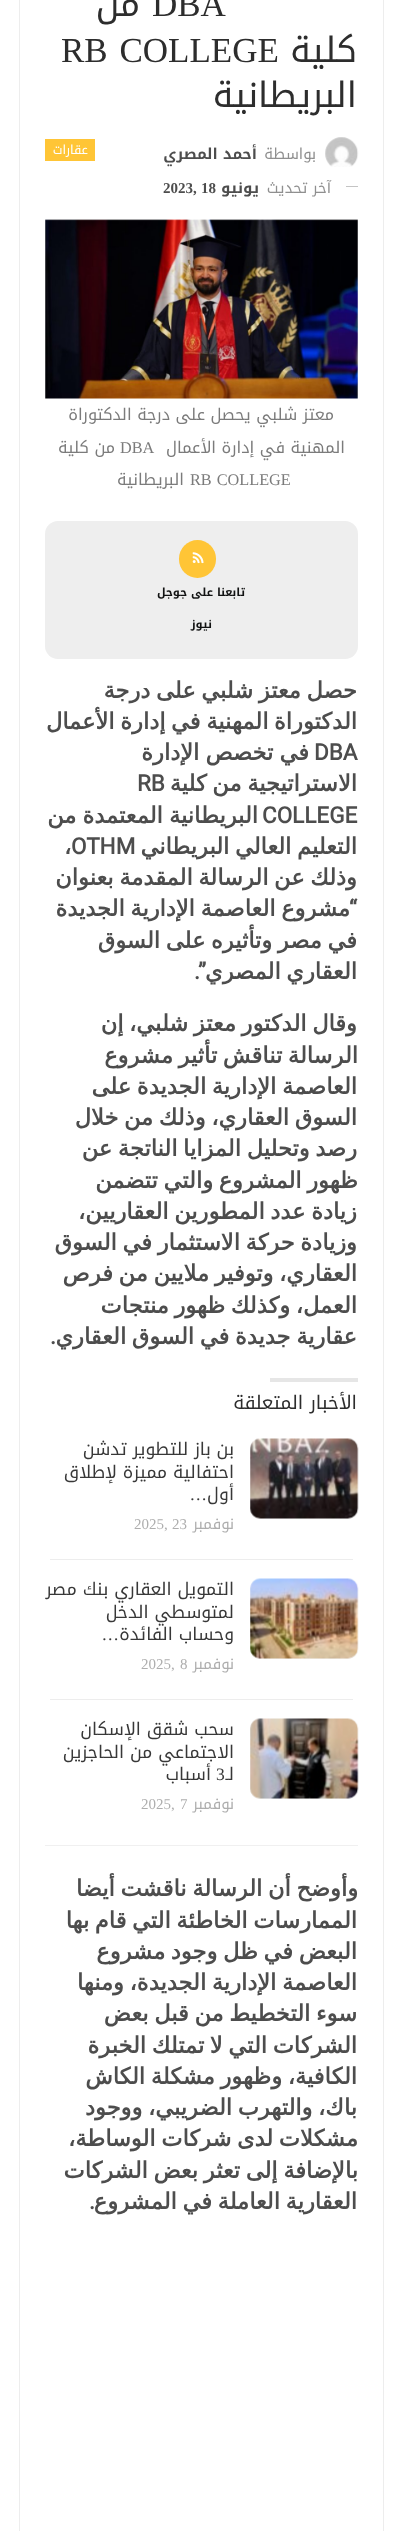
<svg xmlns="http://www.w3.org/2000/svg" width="402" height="2531">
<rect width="100%" height="100%" fill="#fff"/>
<rect x="19.5" y="-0.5" width="364" height="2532" fill="none" stroke="#ededed"/>
<text x="152" y="16" style="font-family:Liberation Serif;font-size:35px;fill:#2d2d2d">DBA</text>
<text x="140" y="16" style="font-family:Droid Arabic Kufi;font-size:35px;direction:rtl;fill:#2d2d2d">من</text>
<text x="357" y="62" style="font-family:Droid Arabic Kufi;font-size:35px;direction:rtl;fill:#2d2d2d">كلية</text>
<text x="61" y="62" word-spacing="3" style="font-family:Liberation Serif;font-size:35px;fill:#2d2d2d">RB COLLEGE</text>
<text x="357" y="107" style="font-family:Droid Arabic Kufi;font-size:35px;direction:rtl;fill:#2d2d2d">البريطانية</text>
<image x="325" y="137" width="34" height="30" href="media/1.png"/>
<text x="316" y="159" style="font-family:Droid Arabic Kufi;font-size:15px;direction:rtl;fill:#8f8f8f">بواسطة</text>
<text x="257" y="159" style="font-family:Droid Arabic Kufi;font-size:15px;font-weight:bold;direction:rtl;fill:#4d4d4d">أحمد المصري</text>
<rect x="346" y="186" width="12" height="1" fill="#c4c4c4"/>
<text x="331" y="193" style="font-family:Droid Arabic Kufi;font-size:15px;direction:rtl;fill:#8f8f8f">آخر تحديث</text>
<text x="259" y="193" style="font-family:Droid Arabic Kufi;font-size:15px;font-weight:bold;direction:rtl;fill:#4d4d4d">يونيو</text>
<text x="201" y="193" style="font-family:Liberation Serif;font-size:15px;font-weight:bold;fill:#4d4d4d">18</text>
<text x="163" y="193" style="font-family:Liberation Serif;font-size:15px;font-weight:bold;fill:#4d4d4d">2023,</text>
<rect x="45" y="139" width="50" height="22" fill="#ffc536"/>
<text x="88" y="154" style="font-family:Droid Arabic Kufi;font-size:12.5px;direction:rtl;fill:#fff">عقارات</text>
<image x="45" y="219" width="313" height="180" href="media/2.png"/>
<text x="334" y="420" style="font-family:Droid Arabic Kufi;font-size:16.25px;direction:rtl;fill:#7b7b7b">معتز شلبي يحصل على درجة الدكتوراة</text>
<text x="345" y="453" style="font-family:Droid Arabic Kufi;font-size:16.25px;direction:rtl;fill:#7b7b7b">المهنية في إدارة الأعمال</text>
<text x="120" y="453" style="font-family:Liberation Serif;font-size:16.25px;fill:#7b7b7b">DBA</text>
<text x="115" y="453" style="font-family:Droid Arabic Kufi;font-size:16.25px;direction:rtl;fill:#7b7b7b">من كلية</text>
<text x="190" y="485" word-spacing="1" style="font-family:Liberation Serif;font-size:16.25px;fill:#7b7b7b">RB COLLEGE</text>
<text x="184" y="485" style="font-family:Droid Arabic Kufi;font-size:16.25px;direction:rtl;fill:#7b7b7b">البريطانية</text>
<rect x="45" y="521" width="313" height="138" rx="13" fill="#eee"/>
<rect x="179" y="540" width="37" height="38" rx="18.5" fill="#ffc536"/>
<image x="192" y="552" width="12" height="12" href="media/3.png"/>
<text x="245" y="596" style="font-family:Droid Arabic Kufi;font-size:11.25px;font-weight:bold;direction:rtl;fill:#111212">تابعنا على جوجل</text>
<text x="212" y="628" style="font-family:Droid Arabic Kufi;font-size:11.25px;font-weight:bold;direction:rtl;fill:#111212">نيوز</text>
<text x="357" y="698" word-spacing="-1.5" style="font-family:DejaVu Sans;font-size:22.5px;font-weight:bold;direction:rtl;fill:#4d4d4d">حصل معتز شلبي على درجة</text>
<text x="357" y="729" word-spacing="-1.5" style="font-family:DejaVu Sans;font-size:22.5px;font-weight:bold;direction:rtl;fill:#4d4d4d">الدكتوراة المهنية في إدارة الأعمال</text>
<text x="314" y="760" style="font-family:Roboto;font-size:22.5px;font-weight:bold;fill:#4d4d4d">DBA</text>
<text x="309" y="760" word-spacing="-1" style="font-family:DejaVu Sans;font-size:22.5px;font-weight:bold;direction:rtl;fill:#4d4d4d">في تخصص الإدارة</text>
<text x="357" y="791" word-spacing="-1.5" style="font-family:DejaVu Sans;font-size:22.5px;font-weight:bold;direction:rtl;fill:#4d4d4d">الاستراتيجية من كلية</text>
<text x="137" y="791" style="font-family:Roboto;font-size:22.5px;font-weight:bold;fill:#4d4d4d">RB</text>
<text x="262" y="823" style="font-family:Roboto;font-size:22.5px;font-weight:bold;fill:#4d4d4d">COLLEGE</text>
<text x="258" y="823" word-spacing="-1" style="font-family:DejaVu Sans;font-size:22.5px;font-weight:bold;direction:rtl;fill:#4d4d4d">البريطانية المعتمدة من</text>
<text x="357" y="854" word-spacing="-1.5" style="font-family:DejaVu Sans;font-size:22.5px;font-weight:bold;direction:rtl;fill:#4d4d4d">التعليم العالي البريطاني</text>
<text x="71" y="854" style="font-family:Roboto;font-size:22.5px;font-weight:bold;fill:#4d4d4d">OTHM</text>
<text x="64" y="854" style="font-family:DejaVu Sans;font-size:22.5px;font-weight:bold;fill:#4d4d4d">،</text>
<text x="357" y="885" word-spacing="-1.5" style="font-family:DejaVu Sans;font-size:22.5px;font-weight:bold;direction:rtl;fill:#4d4d4d">وذلك عن الرسالة المقدمة بعنوان</text>
<text x="350" y="916" word-spacing="-1.5" style="font-family:DejaVu Sans;font-size:22.5px;font-weight:bold;direction:rtl;fill:#4d4d4d">مشروع العاصمة الإدارية الجديدة</text>
<text x="357" y="916" style="font-family:Roboto;font-size:22.5px;font-weight:bold;direction:rtl;fill:#4d4d4d">“</text>
<text x="357" y="948" word-spacing="-1.5" style="font-family:DejaVu Sans;font-size:22.5px;font-weight:bold;direction:rtl;fill:#4d4d4d">في مصر وتأثيره على السوق</text>
<text x="357" y="979" word-spacing="-1.5" style="font-family:DejaVu Sans;font-size:22.5px;font-weight:bold;direction:rtl;fill:#4d4d4d">العقاري المصري</text>
<text x="206" y="979" style="font-family:Roboto;font-size:22.5px;font-weight:bold;direction:rtl;fill:#4d4d4d">”.</text>
<text x="357" y="1031" word-spacing="-1.5" style="font-family:DejaVu Sans;font-size:22.5px;font-weight:bold;direction:rtl;fill:#4d4d4d">وقال الدكتور معتز شلبي، إن</text>
<text x="358" y="1063" word-spacing="-1.5" style="font-family:DejaVu Sans;font-size:22.5px;font-weight:bold;direction:rtl;fill:#4d4d4d">الرسالة تناقش تأثير مشروع</text>
<text x="357" y="1094" word-spacing="-1.5" style="font-family:DejaVu Sans;font-size:22.5px;font-weight:bold;direction:rtl;fill:#4d4d4d">العاصمة الإدارية الجديدة على</text>
<text x="357" y="1125" word-spacing="-1.5" style="font-family:DejaVu Sans;font-size:22.5px;font-weight:bold;direction:rtl;fill:#4d4d4d">السوق العقاري، وذلك من خلال</text>
<text x="357" y="1156" word-spacing="-1.5" style="font-family:DejaVu Sans;font-size:22.5px;font-weight:bold;direction:rtl;fill:#4d4d4d">رصد وتحليل المزايا الناتجة عن</text>
<text x="358" y="1188" word-spacing="-1.5" style="font-family:DejaVu Sans;font-size:22.5px;font-weight:bold;direction:rtl;fill:#4d4d4d">ظهور المشروع والتي تتضمن</text>
<text x="357" y="1219" word-spacing="-1.5" style="font-family:DejaVu Sans;font-size:22.5px;font-weight:bold;direction:rtl;fill:#4d4d4d">زيادة عدد المطورين العقاريين،</text>
<text x="357" y="1250" word-spacing="-1.5" style="font-family:DejaVu Sans;font-size:22.5px;font-weight:bold;direction:rtl;fill:#4d4d4d">وزيادة حركة الاستثمار في السوق</text>
<text x="357" y="1281" word-spacing="-1.5" style="font-family:DejaVu Sans;font-size:22.5px;font-weight:bold;direction:rtl;fill:#4d4d4d">العقاري، وتوفير ملايين من فرص</text>
<text x="357" y="1313" word-spacing="-1.5" style="font-family:DejaVu Sans;font-size:22.5px;font-weight:bold;direction:rtl;fill:#4d4d4d">العمل، وكذلك ظهور منتجات</text>
<text x="357" y="1344" word-spacing="-1.5" style="font-family:DejaVu Sans;font-size:22.5px;font-weight:bold;direction:rtl;fill:#4d4d4d">عقارية جديدة في السوق العقاري</text>
<text x="56" y="1344" style="font-family:Roboto;font-size:22.5px;font-weight:bold;direction:rtl;fill:#4d4d4d">.</text>
<rect x="45" y="1845" width="313" height="1" fill="#f0f0f0"/>
<rect x="270" y="1378" width="88" height="4" fill="#e6e6e6"/>
<text x="357" y="1409" style="font-family:Droid Arabic Kufi;font-size:18.75px;direction:rtl;fill:#2d2d2d">الأخبار المتعلقة</text>
<rect x="50" y="1559" width="303" height="1" fill="#ededed"/>
<rect x="250" y="1439" width="108" height="80" rx="10" fill="#f5f5f5"/>
<image x="250" y="1438" width="109" height="81" href="media/4.png"/>
<text x="234" y="1455" style="font-family:Droid Arabic Kufi;font-size:17.5px;direction:rtl;fill:#383838">بن باز للتطوير تدشن</text>
<text x="234" y="1478" style="font-family:Droid Arabic Kufi;font-size:17.5px;direction:rtl;fill:#383838">احتفالية مميزة لإطلاق</text>
<text x="234" y="1500" style="font-family:Droid Arabic Kufi;font-size:17.5px;direction:rtl;fill:#383838">أول</text>
<text x="207" y="1500" style="font-family:Liberation Serif;font-size:17.5px;direction:rtl;fill:#383838">…</text>
<text x="234" y="1529" style="font-family:Droid Arabic Kufi;font-size:15px;direction:rtl;fill:#aeaeae">نوفمبر</text>
<text x="172" y="1529" style="font-family:Liberation Serif;font-size:15px;fill:#aeaeae">23</text>
<text x="134" y="1529" style="font-family:Liberation Serif;font-size:15px;fill:#aeaeae">2025,</text>
<rect x="50" y="1699" width="303" height="1" fill="#ededed"/>
<rect x="250" y="1579" width="108" height="80" rx="10" fill="#f5f5f5"/>
<image x="250" y="1578" width="109" height="81" href="media/5.png"/>
<text x="234" y="1595" style="font-family:Droid Arabic Kufi;font-size:17.5px;direction:rtl;fill:#383838">التمويل العقاري بنك مصر</text>
<text x="234" y="1618" style="font-family:Droid Arabic Kufi;font-size:17.5px;direction:rtl;fill:#383838">لمتوسطي الدخل</text>
<text x="234" y="1640" style="font-family:Droid Arabic Kufi;font-size:17.5px;direction:rtl;fill:#383838">وحساب الفائدة</text>
<text x="119" y="1640" style="font-family:Liberation Serif;font-size:17.5px;direction:rtl;fill:#383838">…</text>
<text x="234" y="1669" style="font-family:Droid Arabic Kufi;font-size:15px;direction:rtl;fill:#aeaeae">نوفمبر</text>
<text x="180" y="1669" style="font-family:Liberation Serif;font-size:15px;fill:#aeaeae">8</text>
<text x="141" y="1669" style="font-family:Liberation Serif;font-size:15px;fill:#aeaeae">2025,</text>
<rect x="250" y="1719" width="108" height="80" rx="10" fill="#f5f5f5"/>
<image x="250" y="1718" width="109" height="81" href="media/6.png"/>
<text x="234" y="1735" style="font-family:Droid Arabic Kufi;font-size:17.5px;direction:rtl;fill:#383838">سحب شقق الإسكان</text>
<text x="234" y="1758" style="font-family:Droid Arabic Kufi;font-size:17.5px;direction:rtl;fill:#383838">الاجتماعي من الحاجزين</text>
<text x="234" y="1780" style="font-family:Droid Arabic Kufi;font-size:17.5px;direction:rtl;fill:#383838">لـ</text>
<text x="216" y="1780" style="font-family:Liberation Serif;font-size:17.5px;fill:#383838">3</text>
<text x="211" y="1780" style="font-family:Droid Arabic Kufi;font-size:17.5px;direction:rtl;fill:#383838">أسباب</text>
<text x="234" y="1809" style="font-family:Droid Arabic Kufi;font-size:15px;direction:rtl;fill:#aeaeae">نوفمبر</text>
<text x="180" y="1809" style="font-family:Liberation Serif;font-size:15px;fill:#aeaeae">7</text>
<text x="141" y="1809" style="font-family:Liberation Serif;font-size:15px;fill:#aeaeae">2025,</text>
<text x="358" y="1896" word-spacing="-1.5" style="font-family:DejaVu Sans;font-size:22.5px;font-weight:bold;direction:rtl;fill:#4d4d4d">وأوضح أن الرسالة ناقشت أيضا</text>
<text x="357" y="1928" word-spacing="-1.5" style="font-family:DejaVu Sans;font-size:22.5px;font-weight:bold;direction:rtl;fill:#4d4d4d">الممارسات الخاطئة التي قام بها</text>
<text x="357" y="1959" word-spacing="-1.5" style="font-family:DejaVu Sans;font-size:22.5px;font-weight:bold;direction:rtl;fill:#4d4d4d">البعض في ظل وجود مشروع</text>
<text x="357" y="1990" word-spacing="-1.5" style="font-family:DejaVu Sans;font-size:22.5px;font-weight:bold;direction:rtl;fill:#4d4d4d">العاصمة الإدارية الجديدة، ومنها</text>
<text x="357" y="2021" word-spacing="-1.5" style="font-family:DejaVu Sans;font-size:22.5px;font-weight:bold;direction:rtl;fill:#4d4d4d">سوء التخطيط من قبل بعض</text>
<text x="357" y="2053" word-spacing="-1.5" style="font-family:DejaVu Sans;font-size:22.5px;font-weight:bold;direction:rtl;fill:#4d4d4d">الشركات التي لا تمتلك الخبرة</text>
<text x="357" y="2084" word-spacing="-1.5" style="font-family:DejaVu Sans;font-size:22.5px;font-weight:bold;direction:rtl;fill:#4d4d4d">الكافية، وظهور مشكلة الكاش</text>
<text x="357" y="2115" word-spacing="-1.5" style="font-family:DejaVu Sans;font-size:22.5px;font-weight:bold;direction:rtl;fill:#4d4d4d">باك، والتهرب الضريبي، ووجود</text>
<text x="358" y="2146" word-spacing="-1.5" style="font-family:DejaVu Sans;font-size:22.5px;font-weight:bold;direction:rtl;fill:#4d4d4d">مشكلات لدى شركات الوساطة،</text>
<text x="358" y="2178" word-spacing="-1.5" style="font-family:DejaVu Sans;font-size:22.5px;font-weight:bold;direction:rtl;fill:#4d4d4d">بالإضافة إلى تعثر بعض الشركات</text>
<text x="357" y="2209" word-spacing="-1.5" style="font-family:DejaVu Sans;font-size:22.5px;font-weight:bold;direction:rtl;fill:#4d4d4d">العقارية العاملة في المشروع</text>
<text x="95" y="2209" style="font-family:Roboto;font-size:22.5px;font-weight:bold;direction:rtl;fill:#4d4d4d">.</text>
</svg>
